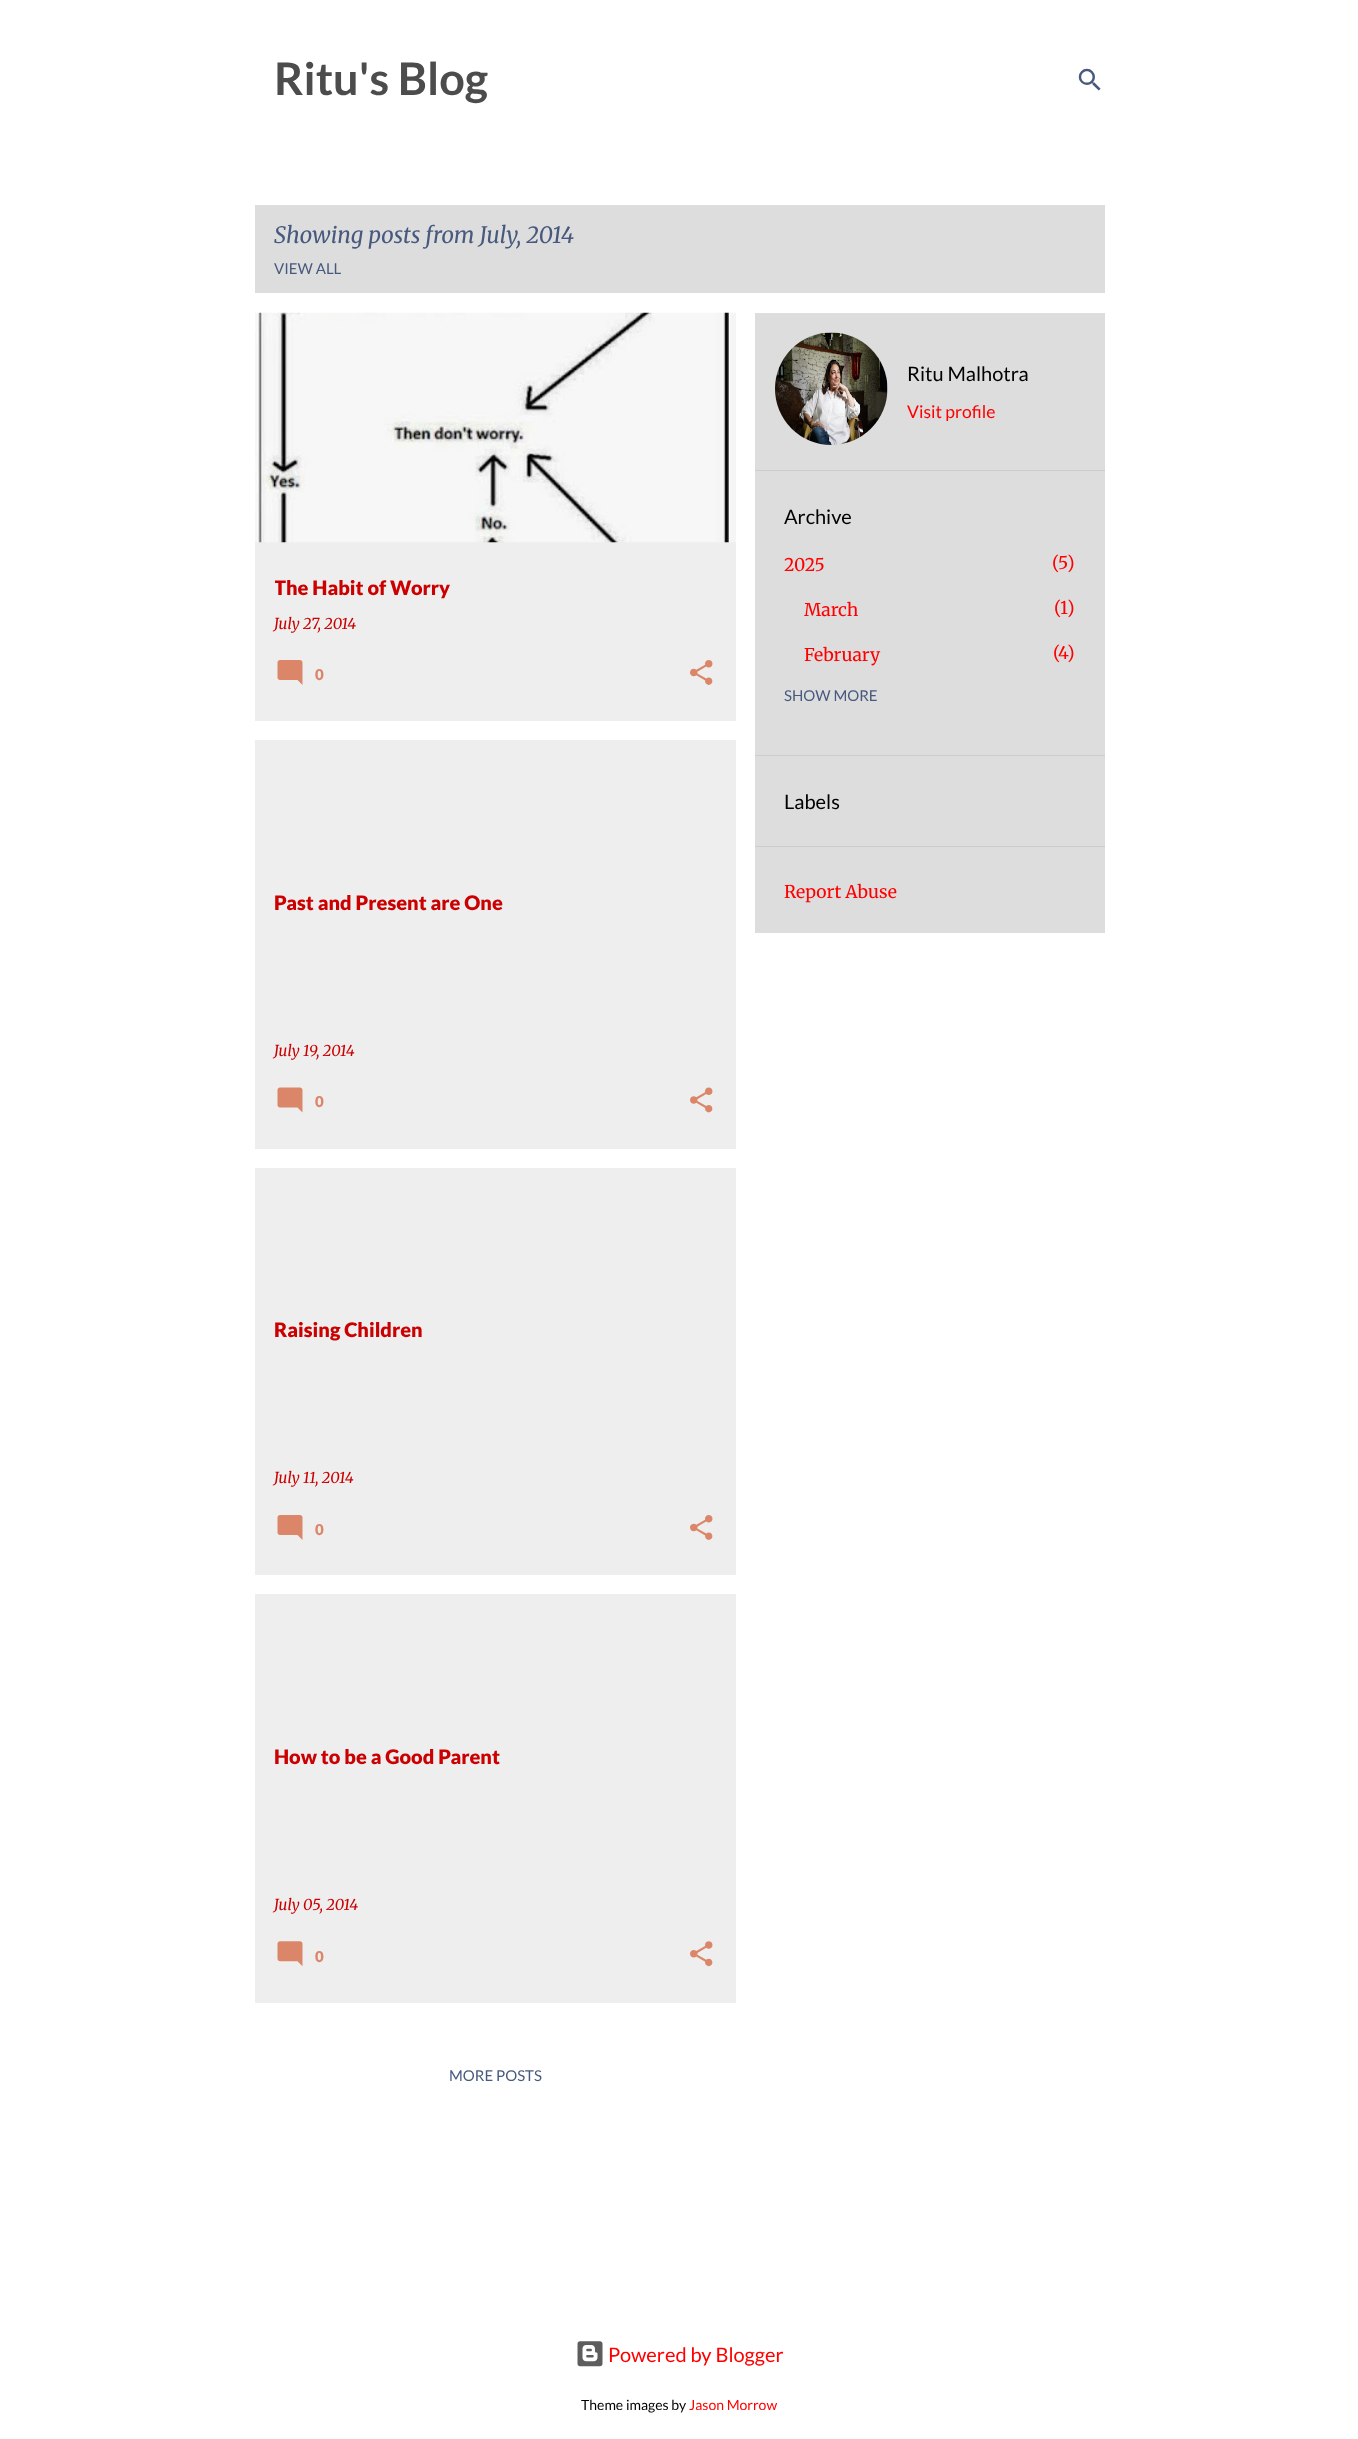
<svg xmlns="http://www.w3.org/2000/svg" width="1358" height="2439">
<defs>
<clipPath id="clip1"><rect x="275" y="573" width="441" height="30"/></clipPath>
</defs>
<rect width="100%" height="100%" fill="#fff"/>
<text x="274" y="95" style="font-family:Lato;font-size:45px;font-weight:bold;fill:#4c4c4c">Ritu's Blog</text>
<image x="1078" y="68" width="23" height="23" href="media/1.png"/>
<rect x="255" y="205" width="850" height="88" fill="#ddd"/>
<text x="274" y="243" style="font-family:Merriweather;font-size:22.5px;font-style:italic;fill:#47597e">Showing posts from July, 2014</text>
<text x="274" y="274" style="font-family:Lato;font-size:15px;fill:#47597e">VIEW ALL</text>
<rect x="255" y="542" width="481" height="179" fill="#eee"/>
<image x="255" y="312" width="481" height="231" href="media/2.png"/>
<g clip-path="url(#clip1)">
<text x="274" y="595" style="font-family:Lato;font-size:20px;font-weight:900;fill:#cb0101">The Habit of Worry</text>
</g>
<text x="274" y="629" style="font-family:Merriweather;font-size:15px;font-style:italic;fill:#cb0101">July 27, 2014</text>
<image x="277" y="660" width="26" height="25" href="media/3.png"/>
<text x="315" y="680" style="font-family:Lato;font-size:15px;font-weight:900;fill:#dc8669">0</text>
<image x="690" y="660" width="23" height="25" href="media/4.png"/>
<rect x="255" y="740" width="481" height="409" fill="#eee"/>
<text x="274" y="910" style="font-family:Lato;font-size:20px;font-weight:900;fill:#cb0101">Past and Present are One</text>
<text x="274" y="1056" style="font-family:Merriweather;font-size:15px;font-style:italic;fill:#cb0101">July 19, 2014</text>
<image x="277" y="1087" width="26" height="26" href="media/5.png"/>
<text x="315" y="1107" style="font-family:Lato;font-size:15px;font-weight:900;fill:#dc8669">0</text>
<image x="690" y="1087" width="23" height="26" href="media/6.png"/>
<rect x="255" y="1168" width="481" height="407" fill="#eee"/>
<text x="274" y="1337" style="font-family:Lato;font-size:20px;font-weight:900;fill:#cb0101">Raising Children</text>
<text x="274" y="1483" style="font-family:Merriweather;font-size:15px;font-style:italic;fill:#cb0101">July 11, 2014</text>
<image x="277" y="1515" width="26" height="25" href="media/7.png"/>
<text x="315" y="1535" style="font-family:Lato;font-size:15px;font-weight:900;fill:#dc8669">0</text>
<image x="690" y="1515" width="23" height="25" href="media/8.png"/>
<rect x="255" y="1594" width="481" height="409" fill="#eee"/>
<text x="274" y="1764" style="font-family:Lato;font-size:20px;font-weight:900;fill:#cb0101">How to be a Good Parent</text>
<text x="274" y="1910" style="font-family:Merriweather;font-size:15px;font-style:italic;fill:#cb0101">July 05, 2014</text>
<image x="277" y="1941" width="26" height="25" href="media/9.png"/>
<text x="315" y="1962" style="font-family:Lato;font-size:15px;font-weight:900;fill:#dc8669">0</text>
<image x="690" y="1941" width="23" height="26" href="media/10.png"/>
<text x="449" y="2081" style="font-family:Lato;font-size:15px;fill:#47597e">MORE POSTS</text>
<rect x="755" y="313" width="350" height="620" fill="#ddd"/>
<image x="775" y="332" width="113" height="113" href="media/11.png"/>
<text x="907" y="381" style="font-family:Lato;font-size:20px;fill:#000">Ritu Malhotra</text>
<text x="907" y="418" style="font-family:Lato;font-size:17.5px;fill:#f00">Visit profile</text>
<rect x="755" y="470" width="350" height="1" fill="#ccc"/>
<text x="784" y="524" style="font-family:Lato;font-size:20px;fill:#000">Archive</text>
<text x="784" y="571" style="font-family:Merriweather;font-size:17.5px;font-weight:300;fill:#f00">2025</text>
<text x="1052" y="569" style="font-family:Merriweather;font-size:17.5px;font-weight:300;fill:#f00">(</text>
<text x="1058" y="569" style="font-family:Merriweather;font-size:17.5px;font-weight:300;fill:#f00">5</text>
<text x="1067" y="569" style="font-family:Merriweather;font-size:17.5px;font-weight:300;fill:#f00">)</text>
<text x="804" y="616" style="font-family:Merriweather;font-size:17.5px;font-weight:300;fill:#f00">March</text>
<text x="1054" y="614" style="font-family:Merriweather;font-size:17.5px;font-weight:300;fill:#f00">(</text>
<text x="1060" y="614" style="font-family:Merriweather;font-size:17.5px;font-weight:300;fill:#f00">1</text>
<text x="1067" y="614" style="font-family:Merriweather;font-size:17.5px;font-weight:300;fill:#f00">)</text>
<text x="804" y="661" style="font-family:Merriweather;font-size:17.5px;font-weight:300;fill:#f00">February</text>
<text x="1053" y="659" style="font-family:Merriweather;font-size:17.5px;font-weight:300;fill:#f00">(</text>
<text x="1058" y="659" style="font-family:Merriweather;font-size:17.5px;font-weight:300;fill:#f00">4</text>
<text x="1067" y="659" style="font-family:Merriweather;font-size:17.5px;font-weight:300;fill:#f00">)</text>
<text x="784" y="701" style="font-family:Lato;font-size:15px;fill:#47597e">SHOW MORE</text>
<rect x="755" y="755" width="350" height="1" fill="#ccc"/>
<text x="784" y="809" style="font-family:Lato;font-size:20px;fill:#000">Labels</text>
<rect x="755" y="846" width="350" height="1" fill="#ccc"/>
<text x="784" y="898" style="font-family:Merriweather;font-size:17.5px;font-weight:300;fill:#f00">Report Abuse</text>
<image x="577" y="2341" width="26" height="26" href="media/12.png"/>
<text x="608" y="2362" style="font-family:Lato;font-size:20px;fill:#f00">Powered by Blogger</text>
<text x="581" y="2410" style="font-family:Lato;font-size:14px;fill:#000">Theme images by</text>
<text x="689" y="2410" style="font-family:Lato;font-size:14px;fill:#f00">Jason Morrow</text>
</svg>
